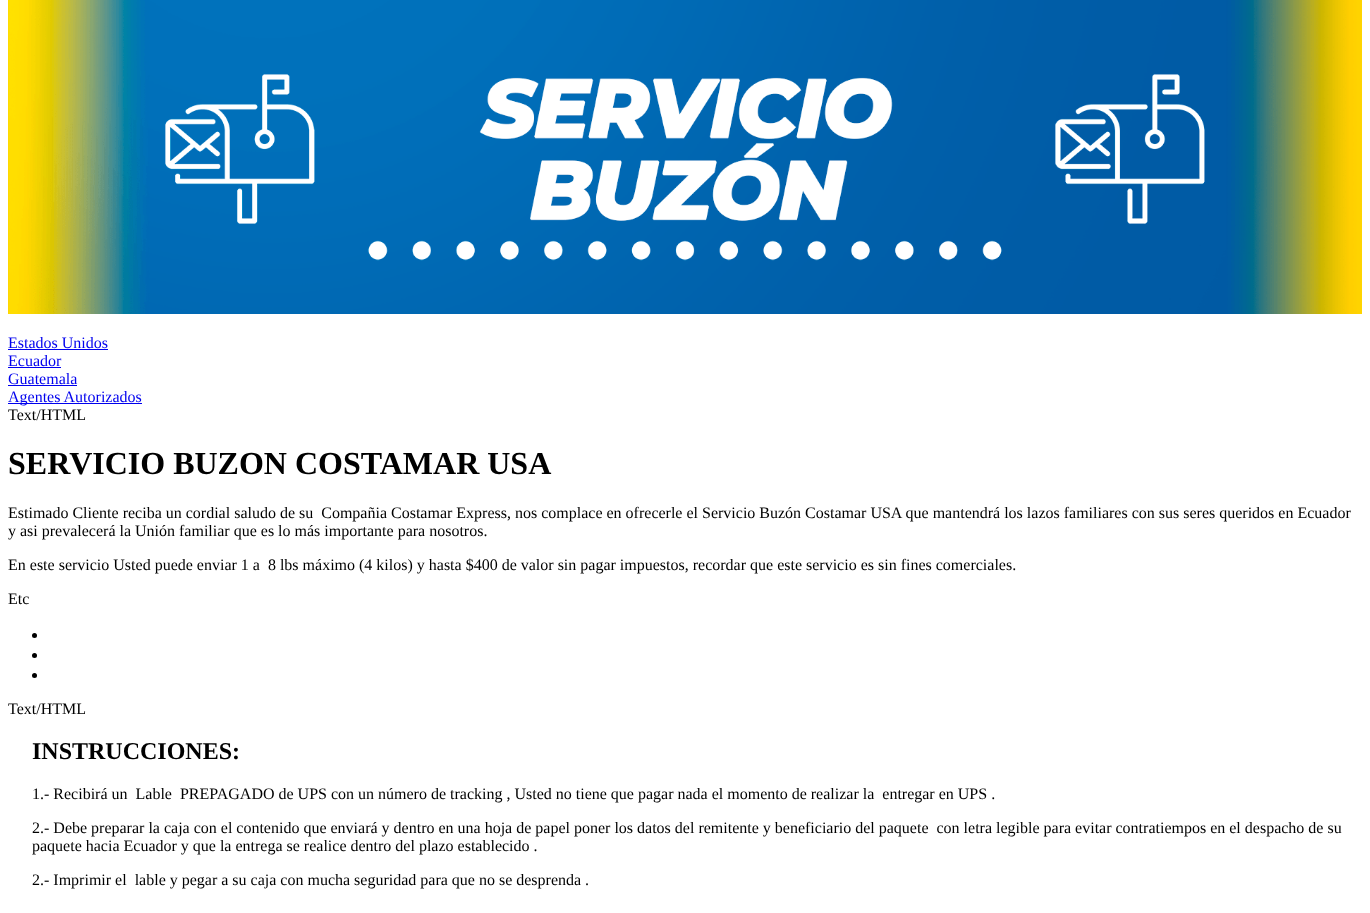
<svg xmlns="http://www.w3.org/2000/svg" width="1370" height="913">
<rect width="100%" height="100%" fill="#fff"/>
<image x="8" y="0" width="1354" height="314" href="media/1.png"/>
<text x="8" y="348" style="font-family:Liberation Serif;font-size:16px;fill:#00e">Estados Unidos</text>
<rect x="8" y="349" width="100" height="1" fill="#00e"/>
<text x="8" y="366" style="font-family:Liberation Serif;font-size:16px;fill:#00e">Ecuador</text>
<rect x="8" y="367" width="53" height="1" fill="#00e"/>
<text x="8" y="384" style="font-family:Liberation Serif;font-size:16px;fill:#00e">Guatemala</text>
<rect x="8" y="385" width="69" height="1" fill="#00e"/>
<rect x="8" y="403" width="134" height="1" fill="#00e"/>
<text x="8" y="402" style="font-family:Liberation Serif;font-size:16px;fill:#00e">Agentes Autorizados</text>
<text x="8" y="420" style="font-family:Liberation Serif;font-size:16px;fill:#000">Text/HTML</text>
<text x="8" y="474" style="font-family:Liberation Serif;font-size:32px;font-weight:bold;fill:#000">SERVICIO BUZON COSTAMAR USA</text>
<text x="8" y="518" style="font-family:Liberation Serif;font-size:16px;fill:#000" xml:space="preserve">Estimado Cliente reciba un cordial saludo de su  Compañia Costamar Express, nos complace en ofrecerle el Servicio Buzón Costamar USA que mantendrá los lazos familiares con sus seres queridos en Ecuador</text>
<text x="8" y="536" style="font-family:Liberation Serif;font-size:16px;fill:#000">y asi prevalecerá la Unión familiar que es lo más importante para nosotros.</text>
<text x="8" y="570" style="font-family:Liberation Serif;font-size:16px;fill:#000" xml:space="preserve">En este servicio Usted puede enviar 1 a  8 lbs máximo (4 kilos) y hasta $400 de valor sin pagar impuestos, recordar que este servicio es sin fines comerciales.</text>
<text x="8" y="604" style="font-family:Liberation Serif;font-size:16px;fill:#000">Etc</text>
<circle cx="34.5" cy="635.5" r="2.5" fill="#000"/>
<circle cx="34.5" cy="655.5" r="2.5" fill="#000"/>
<circle cx="34.5" cy="675.5" r="2.5" fill="#000"/>
<text x="8" y="714" style="font-family:Liberation Serif;font-size:16px;fill:#000">Text/HTML</text>
<text x="32" y="759" style="font-family:Liberation Serif;font-size:24px;font-weight:bold;fill:#000">INSTRUCCIONES:</text>
<text x="32" y="799" style="font-family:Liberation Serif;font-size:16px;fill:#000" xml:space="preserve">1.- Recibirá un  Lable  PREPAGADO de UPS con un número de tracking , Usted no tiene que pagar nada el momento de realizar la  entregar en UPS .</text>
<text x="32" y="833" style="font-family:Liberation Serif;font-size:16px;fill:#000" xml:space="preserve">2.- Debe preparar la caja con el contenido que enviará y dentro en una hoja de papel poner los datos del remitente y beneficiario del paquete  con letra legible para evitar contratiempos en el despacho de su</text>
<text x="32" y="851" style="font-family:Liberation Serif;font-size:16px;fill:#000">paquete hacia Ecuador y que la entrega se realice dentro del plazo establecido .</text>
<text x="32" y="885" style="font-family:Liberation Serif;font-size:16px;fill:#000" xml:space="preserve">2.- Imprimir el  lable y pegar a su caja con mucha seguridad para que no se desprenda .</text>
</svg>
